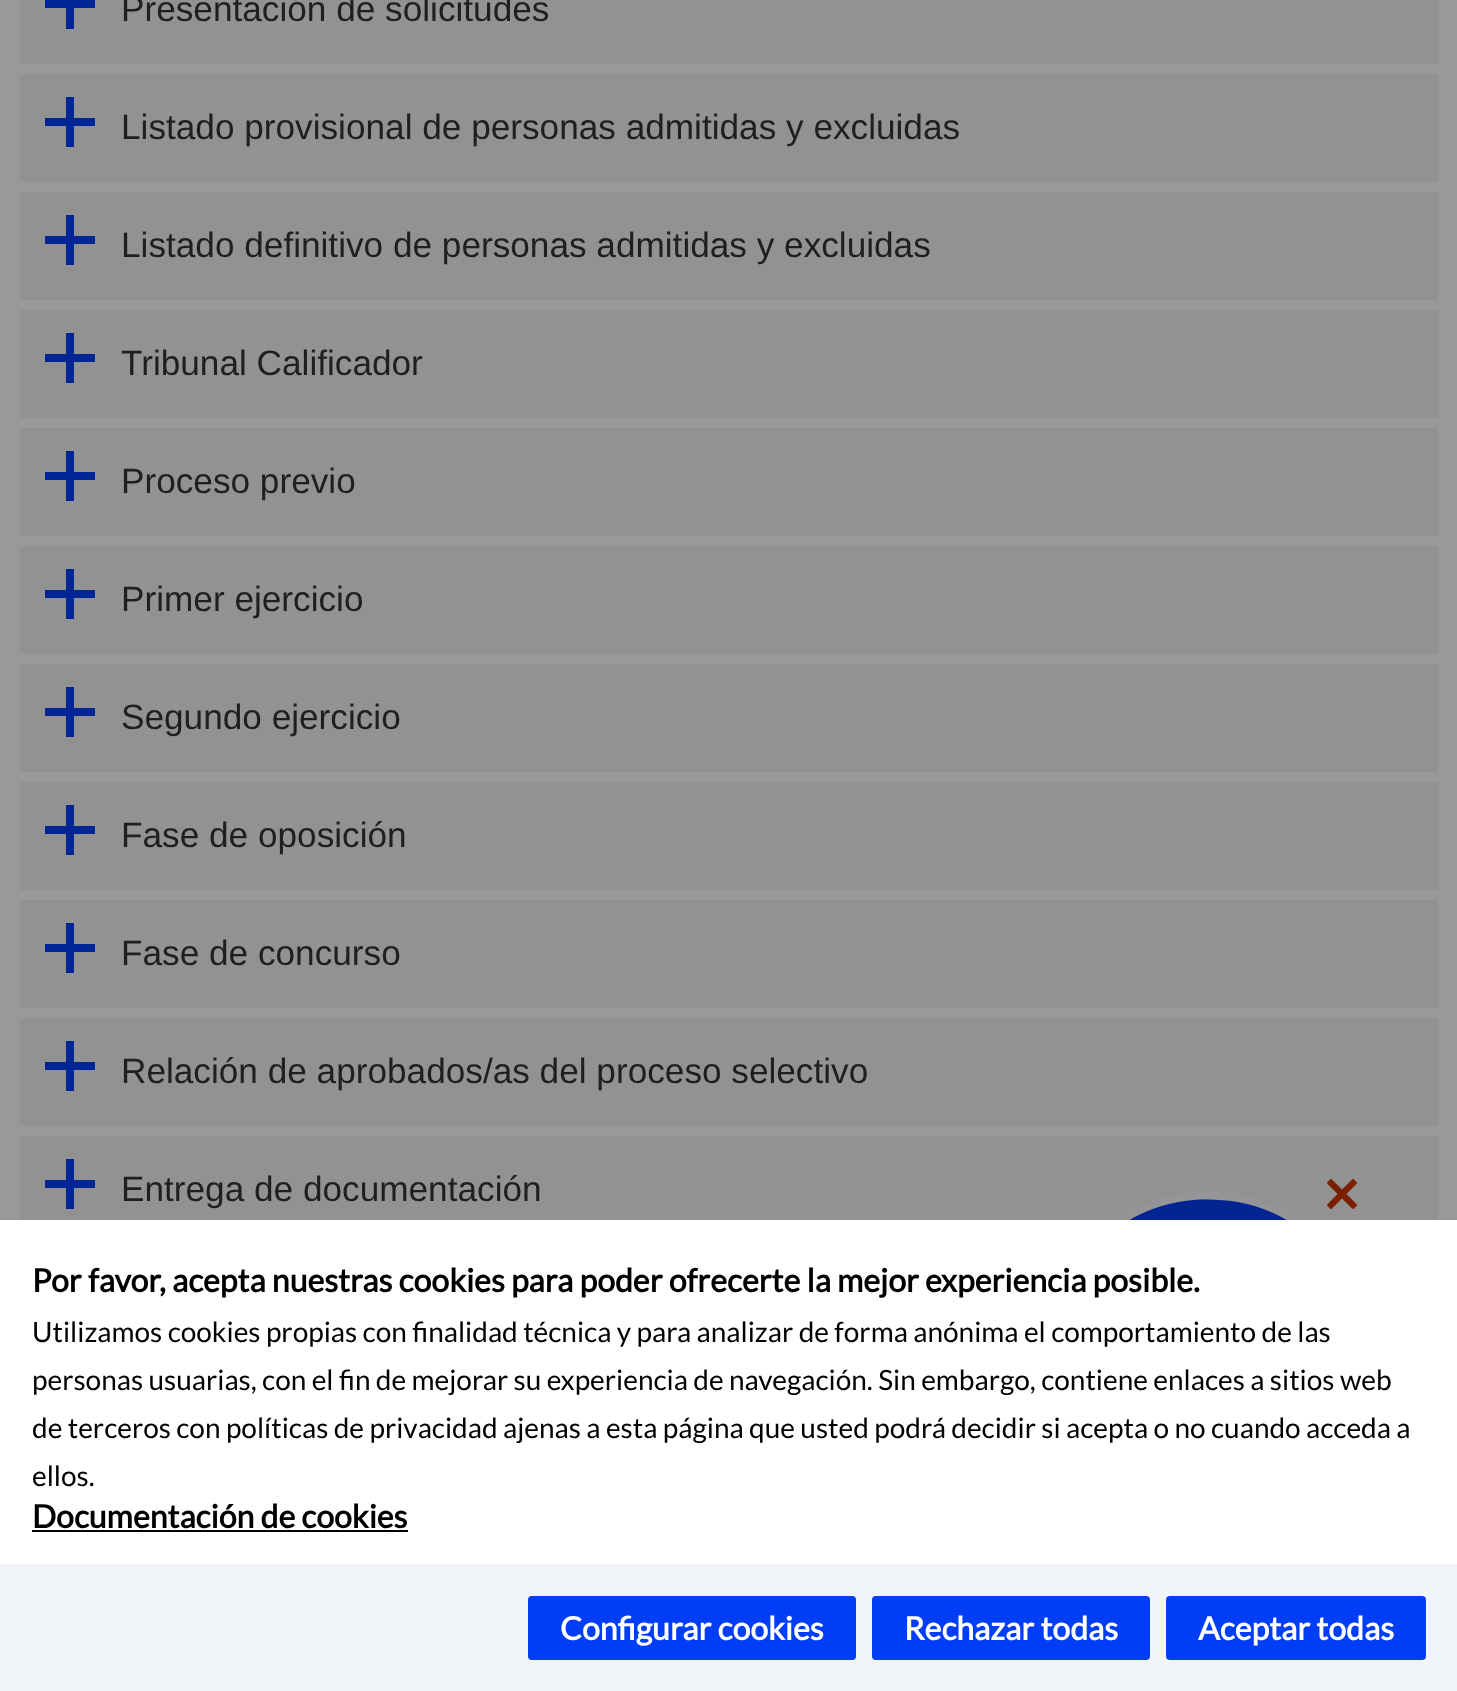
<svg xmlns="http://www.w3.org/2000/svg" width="1457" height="1691">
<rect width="100%" height="100%" fill="#999"/>
<rect x="20" width="1418" height="64" fill="#929292"/>
<path d="M95 0h-21v-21h-8v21h-21v8h21v21h8v-21h21z" fill="#002594"/>
<text x="121" y="21" style="font-family:Liberation Sans;font-size:35.2px;fill:#1f1f1f">Presentación de solicitudes</text>
<rect x="20" y="74" width="1418" height="108" fill="#929292"/>
<path d="M95 118h-21v-21h-8v21h-21v8h21v21h8v-21h21z" fill="#002594"/>
<text x="121" y="139" style="font-family:Liberation Sans;font-size:35.2px;fill:#1f1f1f">Listado provisional de personas admitidas y excluidas</text>
<rect x="20" y="192" width="1418" height="108" fill="#929292"/>
<path d="M95 236h-21v-21h-8v21h-21v8h21v21h8v-21h21z" fill="#002594"/>
<text x="121" y="257" style="font-family:Liberation Sans;font-size:35.2px;fill:#1f1f1f">Listado definitivo de personas admitidas y excluidas</text>
<rect x="20" y="310" width="1418" height="108" fill="#929292"/>
<path d="M95 354h-21v-21h-8v21h-21v8h21v21h8v-21h21z" fill="#002594"/>
<text x="121" y="375" style="font-family:Liberation Sans;font-size:35.2px;fill:#1f1f1f">Tribunal Calificador</text>
<rect x="20" y="428" width="1418" height="108" fill="#929292"/>
<path d="M95 472h-21v-21h-8v21h-21v8h21v21h8v-21h21z" fill="#002594"/>
<text x="121" y="493" style="font-family:Liberation Sans;font-size:35.2px;fill:#1f1f1f">Proceso previo</text>
<rect x="20" y="546" width="1418" height="108" fill="#929292"/>
<path d="M95 590h-21v-21h-8v21h-21v8h21v21h8v-21h21z" fill="#002594"/>
<text x="121" y="611" style="font-family:Liberation Sans;font-size:35.2px;fill:#1f1f1f">Primer ejercicio</text>
<rect x="20" y="664" width="1418" height="108" fill="#929292"/>
<path d="M95 708h-21v-21h-8v21h-21v8h21v21h8v-21h21z" fill="#002594"/>
<text x="121" y="729" style="font-family:Liberation Sans;font-size:35.2px;fill:#1f1f1f">Segundo ejercicio</text>
<rect x="20" y="782" width="1418" height="108" fill="#929292"/>
<path d="M95 826h-21v-21h-8v21h-21v8h21v21h8v-21h21z" fill="#002594"/>
<text x="121" y="847" style="font-family:Liberation Sans;font-size:35.2px;fill:#1f1f1f">Fase de oposición</text>
<rect x="20" y="900" width="1418" height="108" fill="#929292"/>
<path d="M95 944h-21v-21h-8v21h-21v8h21v21h8v-21h21z" fill="#002594"/>
<text x="121" y="965" style="font-family:Liberation Sans;font-size:35.2px;fill:#1f1f1f">Fase de concurso</text>
<rect x="20" y="1018" width="1418" height="108" fill="#929292"/>
<path d="M95 1062h-21v-21h-8v21h-21v8h21v21h8v-21h21z" fill="#002594"/>
<text x="121" y="1083" style="font-family:Liberation Sans;font-size:35.2px;fill:#1f1f1f">Relación de aprobados/as del proceso selectivo</text>
<rect x="20" y="1136" width="1418" height="84" fill="#929292"/>
<path d="M95 1180h-21v-21h-8v21h-21v8h21v21h8v-21h21z" fill="#002594"/>
<text x="121" y="1201" style="font-family:Liberation Sans;font-size:35.2px;fill:#1f1f1f">Entrega de documentación</text>
<image x="1115" y="1192" width="186" height="28" href="media/1.png"/>
<image x="1327" y="1179" width="30" height="30" href="media/2.png"/>
<rect y="1220" width="1457" height="344" fill="#fff"/>
<text x="32" y="1292" style="font-family:Lato;font-size:32px;font-weight:bold;fill:#000">Por favor, acepta nuestras cookies para poder ofrecerte la mejor experiencia posible.</text>
<text x="32" y="1342" style="font-family:Lato;font-size:28px;fill:#000">Utilizamos cookies propias con finalidad técnica y para analizar de forma anónima el comportamiento de las</text>
<text x="32" y="1390" style="font-family:Lato;font-size:28px;fill:#000">personas usuarias, con el fin de mejorar su experiencia de navegación. Sin embargo, contiene enlaces a sitios web</text>
<text x="32" y="1438" style="font-family:Lato;font-size:28px;fill:#000">de terceros con políticas de privacidad ajenas a esta página que usted podrá decidir si acepta o no cuando acceda a</text>
<text x="32" y="1486" style="font-family:Lato;font-size:28px;fill:#000">ellos.</text>
<text x="32" y="1528" style="font-family:Lato;font-size:32px;font-weight:bold;fill:#000">Documentación de cookies</text>
<rect x="32" y="1530" width="376" height="2" fill="#000"/>
<rect y="1564" width="1457" height="127" fill="#f1f5f9"/>
<rect x="528" y="1596" width="328" height="64" rx="4" fill="#003df6"/>
<text x="560" y="1640" style="font-family:Lato;font-size:32px;font-weight:bold;fill:#fff">Configurar cookies</text>
<rect x="872" y="1596" width="278" height="64" rx="4" fill="#003df6"/>
<text x="904" y="1640" style="font-family:Lato;font-size:32px;font-weight:bold;fill:#fff">Rechazar todas</text>
<rect x="1166" y="1596" width="260" height="64" rx="4" fill="#003df6"/>
<text x="1198" y="1640" style="font-family:Lato;font-size:32px;font-weight:bold;fill:#fff">Aceptar todas</text>
</svg>
